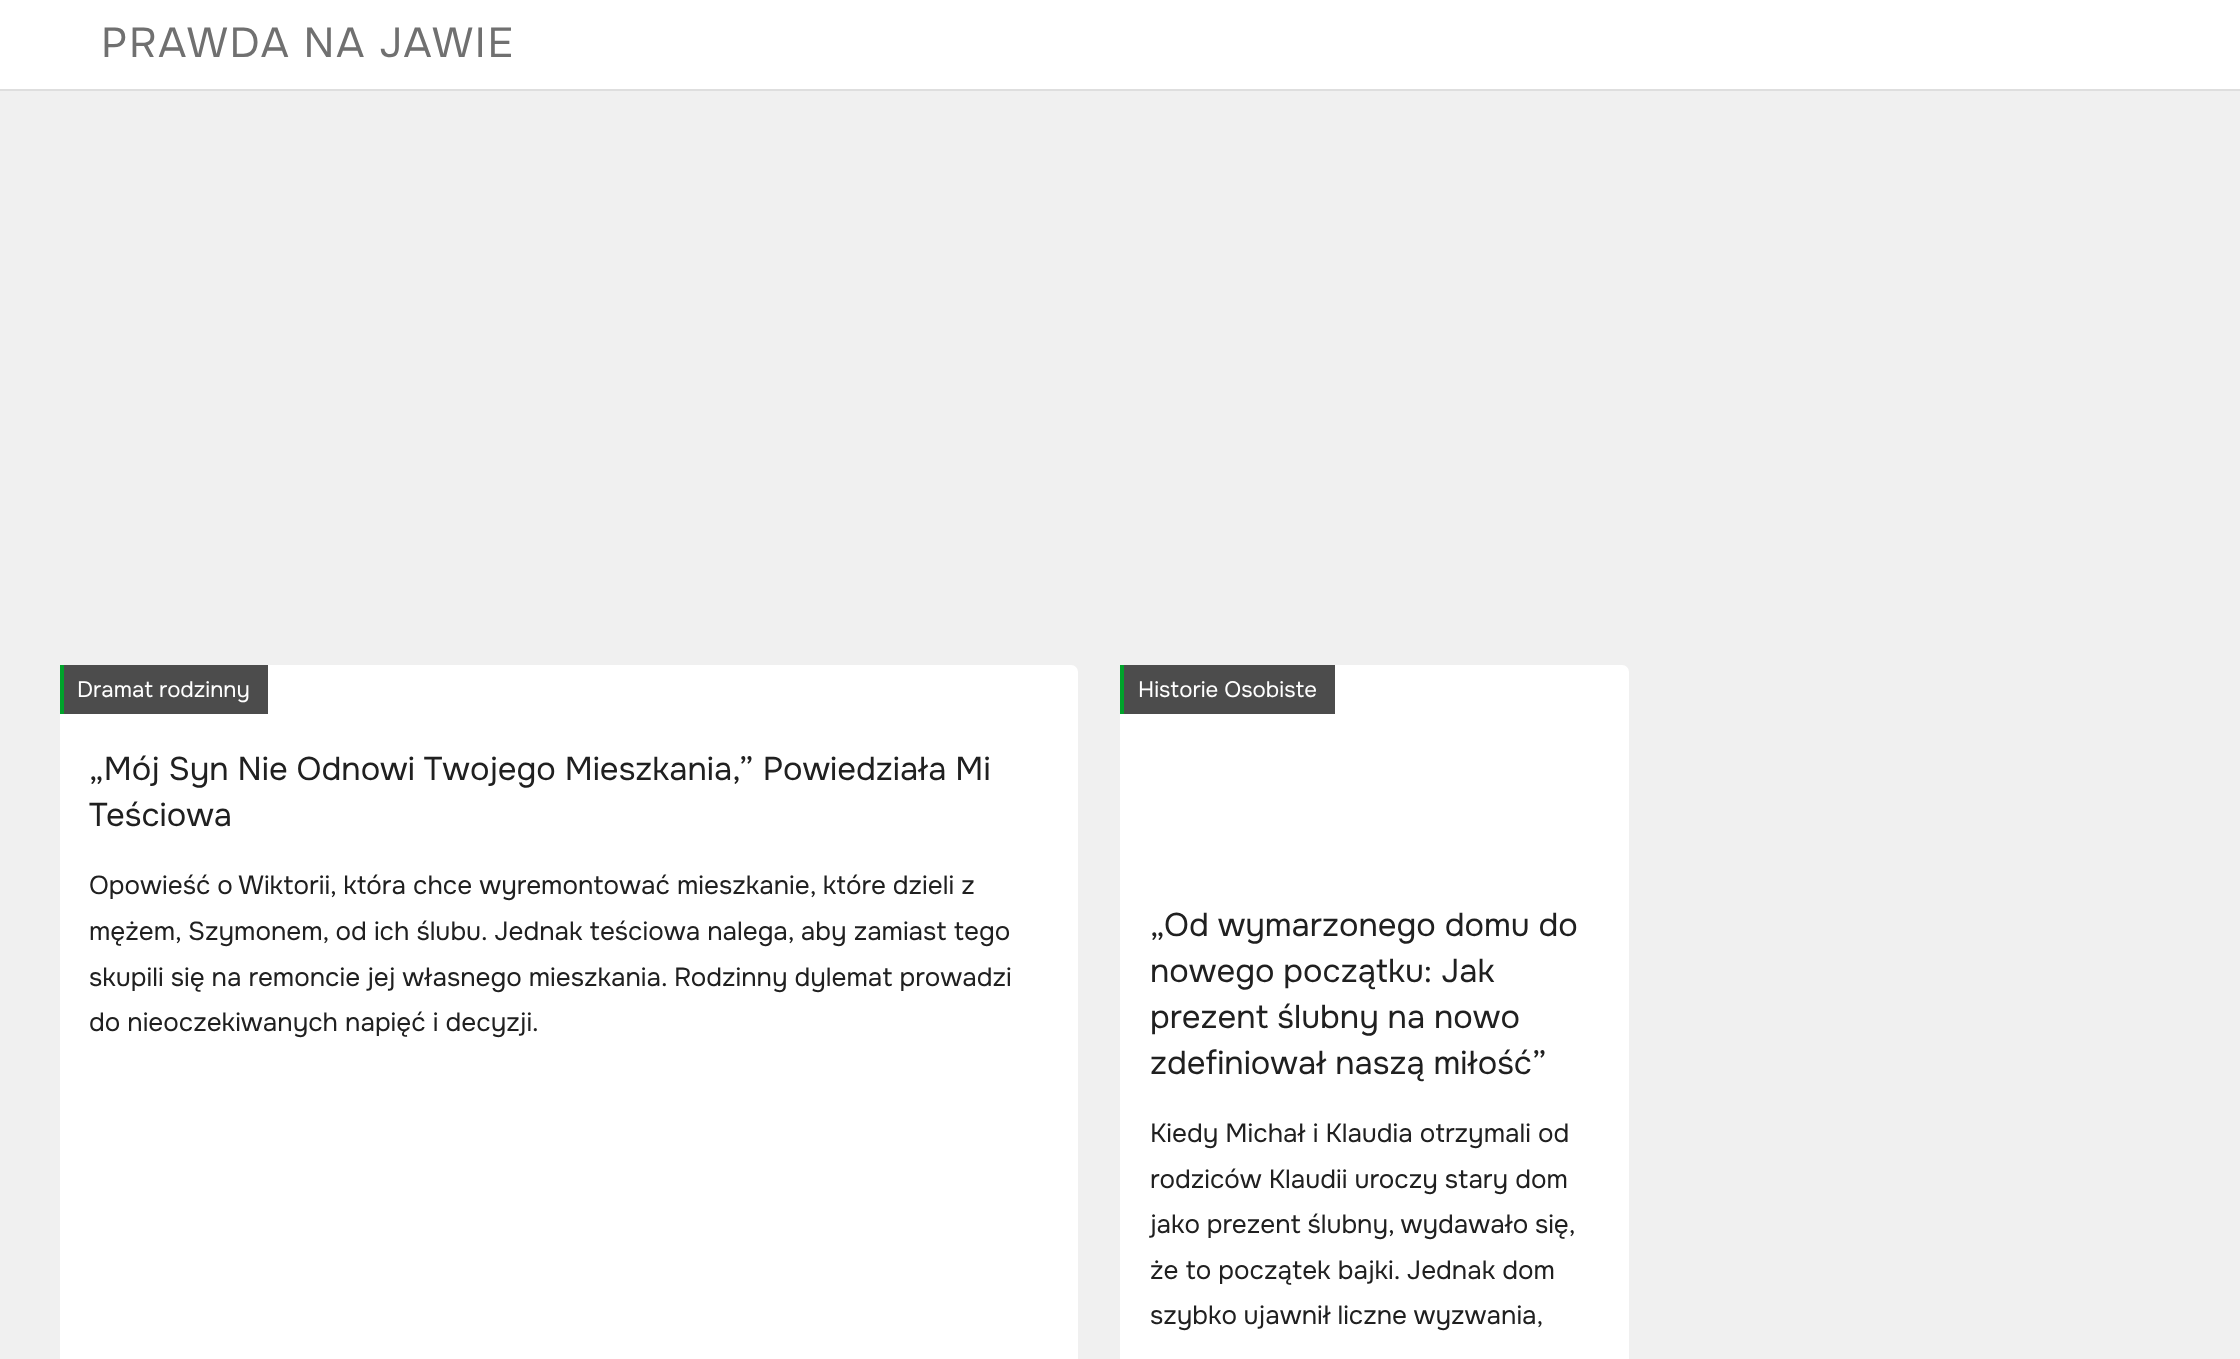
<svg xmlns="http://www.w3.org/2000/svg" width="2240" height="1359">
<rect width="100%" height="100%" fill="#f0f0f0"/>
<rect width="2240" height="89" fill="#fff"/>
<rect y="89" width="2240" height="2" fill="#dedede"/>
<text x="101" y="57" style="font-family:Onest;font-size:41.75px;letter-spacing:1.75px;fill:#707070">PRAWDA NA JAWIE</text>
<rect x="60" y="665" width="1018" height="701" rx="7" fill="#fff"/>
<rect x="64" y="665" width="204" height="49" fill="#000000b3"/>
<rect x="60" y="665" width="4" height="49" fill="#00a32a"/>
<text x="77" y="697" style="font-family:Onest;font-size:22.25px;fill:#fff">Dramat rodzinny</text>
<text x="89" y="780" style="font-family:Onest;font-size:32.75px;fill:#202020">„Mój Syn Nie Odnowi Twojego Mieszkania,” Powiedziała Mi</text>
<text x="89" y="826" style="font-family:Onest;font-size:32.75px;fill:#202020">Teściowa</text>
<text x="89" y="894" style="font-family:Onest;font-size:26.05px;fill:#202020">Opowieść o Wiktorii, która chce wyremontować mieszkanie, które dzieli z</text>
<text x="89" y="940" style="font-family:Onest;font-size:26.05px;fill:#202020">mężem, Szymonem, od ich ślubu. Jednak teściowa nalega, aby zamiast tego</text>
<text x="89" y="986" style="font-family:Onest;font-size:26.05px;fill:#202020">skupili się na remoncie jej własnego mieszkania. Rodzinny dylemat prowadzi</text>
<text x="89" y="1031" style="font-family:Onest;font-size:26.05px;fill:#202020">do nieoczekiwanych napięć i decyzji.</text>
<rect x="1120" y="665" width="509" height="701" rx="7" fill="#fff"/>
<rect x="1124" y="665" width="211" height="49" fill="#000000b3"/>
<rect x="1120" y="665" width="4" height="49" fill="#00a32a"/>
<text x="1138" y="697" style="font-family:Onest;font-size:22.25px;fill:#fff">Historie Osobiste</text>
<text x="1150" y="936" style="font-family:Onest;font-size:32.75px;fill:#202020">„Od wymarzonego domu do</text>
<text x="1150" y="982" style="font-family:Onest;font-size:32.75px;fill:#202020">nowego początku: Jak</text>
<text x="1150" y="1028" style="font-family:Onest;font-size:32.75px;fill:#202020">prezent ślubny na nowo</text>
<text x="1150" y="1074" style="font-family:Onest;font-size:32.75px;fill:#202020">zdefiniował naszą miłość”</text>
<text x="1150" y="1142" style="font-family:Onest;font-size:26.05px;fill:#202020">Kiedy Michał i Klaudia otrzymali od</text>
<text x="1150" y="1188" style="font-family:Onest;font-size:26.05px;fill:#202020">rodziców Klaudii uroczy stary dom</text>
<text x="1150" y="1233" word-spacing="-0.5" style="font-family:Onest;font-size:26.05px;fill:#202020">jako prezent ślubny, wydawało się,</text>
<text x="1150" y="1279" style="font-family:Onest;font-size:26.05px;fill:#202020">że to początek bajki. Jednak dom</text>
<text x="1150" y="1324" word-spacing="-0.5" style="font-family:Onest;font-size:26.05px;fill:#202020">szybko ujawnił liczne wyzwania,</text>
</svg>
